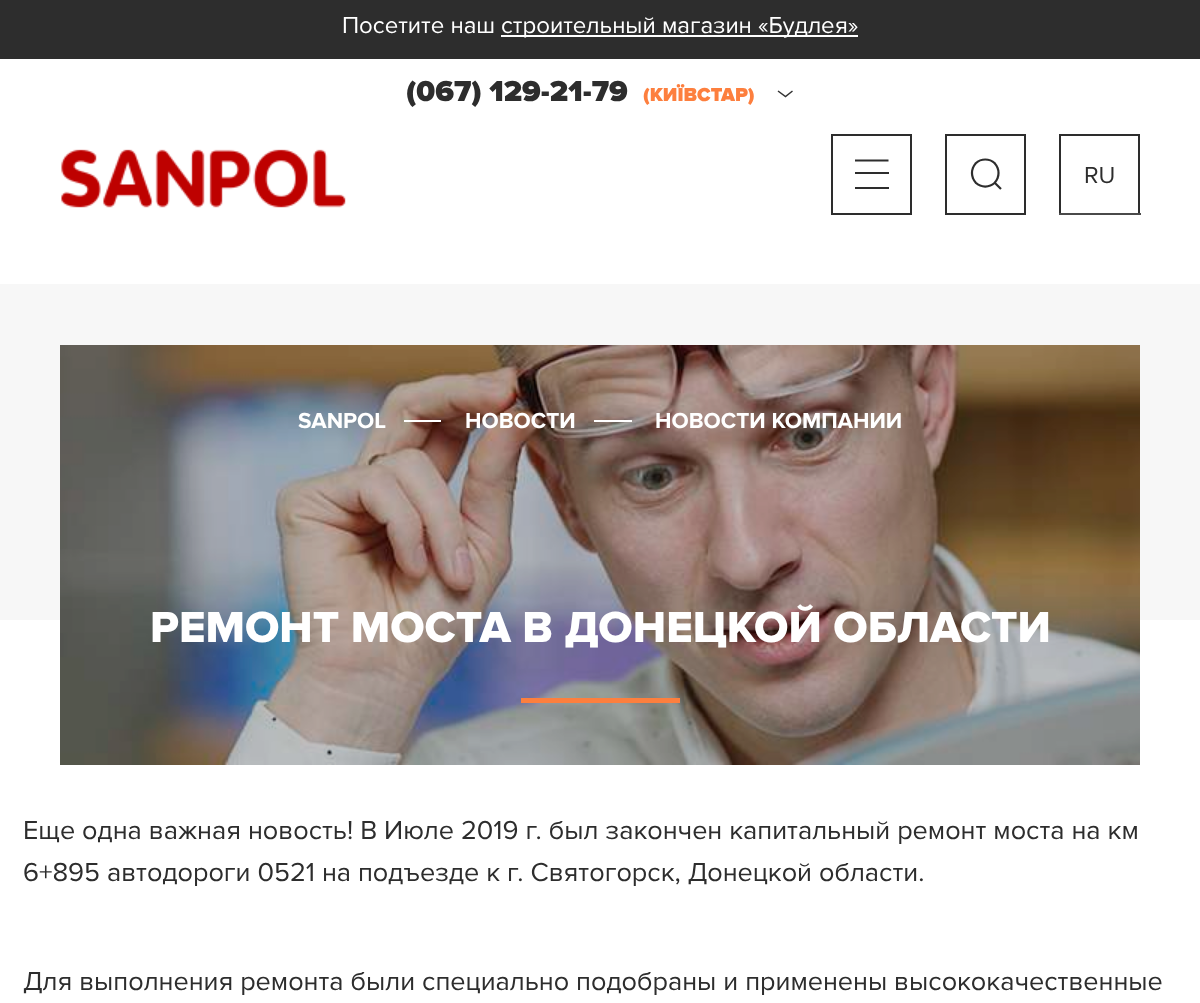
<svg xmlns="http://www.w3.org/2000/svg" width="1200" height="1003">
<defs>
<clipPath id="clip1"><path d="M975 162.5c5.5-5.5 15-5.5 20.5 0c5.5 6 5.5 15 0 21c-5.5 5.5-15 5.5-20.5 0c-5.5-6-5.5-15 0-21z"/></clipPath>
</defs>
<rect width="100%" height="100%" fill="#fff"/>
<rect width="1200" height="59" fill="#2d2d2d"/>
<text x="342" y="33" style="font-family:Proxima Nova;font-size:24px;fill:#fff">Посетите наш</text>
<rect x="501" y="35" width="357" height="2" fill="#fff"/>
<text x="501" y="33" style="font-family:Proxima Nova;font-size:24px;fill:#fff">строительный магазин «Будлея»</text>
<image x="61" y="149" width="285" height="59" href="media/1.png"/>
<text x="406" y="101" style="font-family:Proxima Nova;font-size:30px;font-weight:900;fill:#2d2d2d">(067) 129-21-79</text>
<text x="643" y="101" style="font-family:Proxima Nova;font-size:19.5px;font-weight:900;fill:#fd7f3e">(КИЇВСТАР)</text>
<path d="M778 91l7.5 5.5l7-5.5" fill="none" stroke="#333" stroke-width="1.5"/>
<g clip-path="url(#clip1)">
<path d="M975 162.5c5.5-5.5 15-5.5 20.5 0c5.5 6 5.5 15 0 21c-5.5 5.5-15 5.5-20.5 0c-5.5-6-5.5-15 0-21z" fill="none" stroke="#2d2d2d" stroke-width="4.4"/>
</g>
<path d="M1001 189l-6.5-6.5" fill="none" stroke="#2d2d2d" stroke-width="2.2"/>
<rect x="946" y="135" width="79" height="79" fill="none" stroke="#2d2d2d" stroke-width="2"/>
<rect x="1060" y="135" width="79" height="79" fill="none" stroke="#2d2d2d" stroke-width="2"/>
<text x="1084" y="183" style="font-family:Proxima Nova;font-size:24px;fill:#2d2d2d">RU</text>
<rect x="1059" y="213" width="82" height="2" fill="#4a4a4a"/>
<path d="M855 160.5h33.5" fill="none" stroke="#2d2d2d" stroke-width="2.2"/>
<rect x="855" y="172" width="34" height="2" fill="#2d2d2d"/>
<rect x="855" y="187" width="34" height="2" fill="#2d2d2d"/>
<rect x="832" y="135" width="79" height="79" fill="none" stroke="#2d2d2d" stroke-width="2"/>
<rect y="284" width="1200" height="336" fill="#f7f7f7"/>
<image x="60" y="345" width="1080" height="420" href="media/2.png"/>
<text x="298" y="428" style="font-family:Proxima Nova;font-size:22.5px;font-weight:bold;fill:#fff">SANPOL</text>
<rect x="404" y="420" width="37" height="2" fill="#fff"/>
<text x="465" y="428" style="font-family:Proxima Nova;font-size:22.5px;font-weight:bold;fill:#fff">НОВОСТИ</text>
<rect x="594" y="420" width="38" height="2" fill="#fff"/>
<text x="655" y="428" style="font-family:Proxima Nova;font-size:22.5px;font-weight:bold;fill:#fff">НОВОСТИ КОМПАНИИ</text>
<text x="150" y="642" style="font-family:Proxima Nova;font-size:45px;font-weight:800;fill:#fff">РЕМОНТ МОСТА В ДОНЕЦКОЙ ОБЛАСТИ</text>
<rect x="521" y="698" width="159" height="5" fill="#fd7f3e"/>
<text x="23" y="839" style="font-family:Proxima Nova;font-size:27px;fill:#2d2d2d">Еще одна важная новость! В Июле 2019 г. был закончен капитальный ремонт моста на км</text>
<text x="23" y="881" style="font-family:Proxima Nova;font-size:27px;fill:#2d2d2d">6+895 автодороги 0521 на подъезде к г. Святогорск, Донецкой области.</text>
<text x="23" y="990" style="font-family:Proxima Nova;font-size:27px;fill:#2d2d2d">Для выполнения ремонта были специально подобраны и применены высококачественные</text>
</svg>
